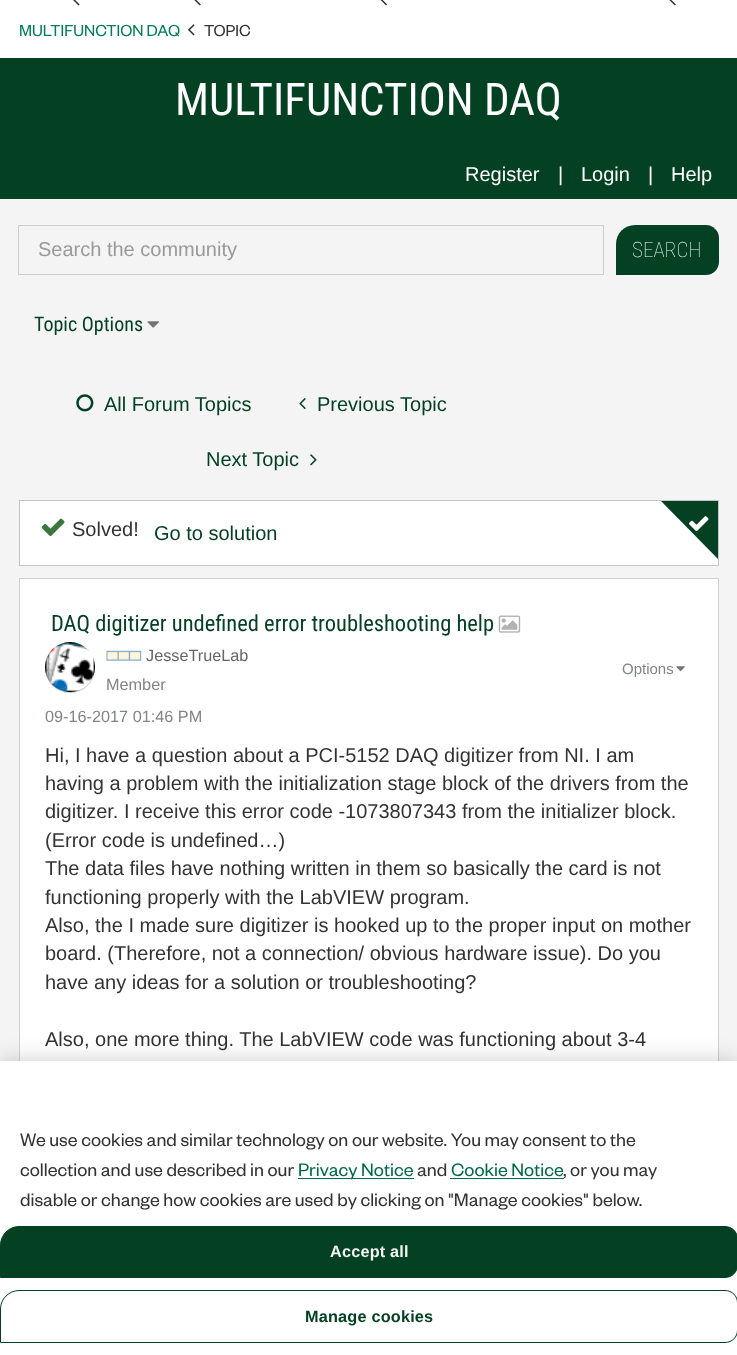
<svg xmlns="http://www.w3.org/2000/svg" width="737" height="1355">
<rect width="100%" height="100%" fill="#f4f4f4"/>
<rect width="737" height="58" fill="#fff"/>
<image x="73" y="0" width="7" height="6" href="media/1.png"/>
<image x="194" y="0" width="7" height="6" href="media/2.png"/>
<image x="380" y="0" width="7" height="6" href="media/3.png"/>
<image x="669" y="0" width="7" height="6" href="media/2.png"/>
<text x="19" y="36" style="font-family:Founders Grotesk;font-size:17.5px;fill:#008053">MULTIFUNCTION DAQ</text>
<image x="188" y="24" width="7" height="12" href="media/4.png"/>
<text x="204" y="36" style="font-family:Founders Grotesk;font-size:17.5px;fill:#333">TOPIC</text>
<rect y="58" width="737" height="141" fill="#044123"/>
<text x="175" y="115" style="font-family:Roboto Condensed;font-size:45px;fill:#fff">MULTIFUNCTION DAQ</text>
<text x="465" y="181" style="font-family:Liberation Sans;font-size:20px;fill:#fff">Register</text>
<text x="558" y="181" style="font-family:Liberation Sans;font-size:20px;fill:#fff">|</text>
<text x="581" y="181" style="font-family:Liberation Sans;font-size:20px;fill:#fff">Login</text>
<text x="648" y="181" style="font-family:Liberation Sans;font-size:20px;fill:#fff">|</text>
<text x="671" y="181" style="font-family:Liberation Sans;font-size:20px;fill:#fff">Help</text>
<rect x="18.5" y="225.5" width="585" height="49" fill="none" stroke="#cdcdcd"/>
<text x="38" y="256" style="font-family:Liberation Sans;font-size:20px;fill:#999">Search the community</text>
<path d="M635 225h71c7 0 13 6 13 13v24c0 7-6 13-13 13h-90v-31c0-10.5 8.5-19 19-19z" fill="#044123"/>
<text x="632" y="257" style="font-family:Roboto Condensed;font-size:21px;font-weight:100;fill:#f4f4f4">SEARCH</text>
<text x="34" y="331" style="font-family:Roboto Condensed;font-size:20px;fill:#044123">Topic Options</text>
<image x="147" y="321" width="12" height="7" href="media/5.png"/>
<image x="76" y="394" width="18" height="18" href="media/6.png"/>
<text x="104" y="411" style="font-family:Liberation Sans;font-size:20px;fill:#044123">All Forum Topics</text>
<image x="299" y="398" width="7" height="12" href="media/7.png"/>
<text x="317" y="411" style="font-family:Liberation Sans;font-size:20px;fill:#044123">Previous Topic</text>
<text x="206" y="466" style="font-family:Liberation Sans;font-size:20px;fill:#044123">Next Topic</text>
<image x="310" y="454" width="7" height="12" href="media/8.png"/>
<rect x="19.5" y="500.5" width="699" height="65" fill="#fff" stroke="#c4c4c4"/>
<image x="41" y="518" width="24" height="18" href="media/9.png"/>
<text x="72" y="536" style="font-family:Liberation Sans;font-size:20px;fill:#333">Solved!</text>
<path d="M661 501h57v58z" fill="#044123"/>
<text x="154" y="540" style="font-family:Liberation Sans;font-size:20px;fill:#044123">Go to solution</text>
<image x="689" y="516" width="20" height="16" href="media/10.png"/>
<rect x="19.5" y="578.5" width="699" height="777" fill="none" stroke="#d1d1d1"/>
<rect x="20" y="579" width="698" height="482" fill="#fff"/>
<text x="51" y="631" style="font-family:Roboto Condensed;font-size:22.5px;fill:#044123">DAQ digitizer undefined error troubleshooting help</text>
<image x="498" y="615" width="23" height="18" href="media/11.png"/>
<rect x="45" y="643" width="50" height="50" rx="25" fill="#c4c4c4" filter="blur(0.5px)"/>
<image x="45" y="642" width="50" height="50" href="media/12.png"/>
<image x="106" y="650" width="36" height="11" href="media/13.png"/>
<text x="146" y="661" style="font-family:Liberation Sans;font-size:16.25px;fill:#666">JesseTrueLab</text>
<text x="106" y="690" style="font-family:Liberation Sans;font-size:16.25px;fill:#808587">Member</text>
<text x="622" y="674" style="font-family:Liberation Sans;font-size:15px;fill:#808587">Options</text>
<image x="676" y="666" width="9" height="5" href="media/14.png"/>
<text x="45" y="722" style="font-family:Liberation Sans;font-size:16.25px;fill:#808587">09-16-2017 01:46 PM</text>
<text x="45" y="762" style="font-family:Liberation Sans;font-size:20px;fill:#333">Hi, I have a question about a PCI-5152 DAQ digitizer from NI. I am</text>
<text x="45" y="790" style="font-family:Liberation Sans;font-size:20px;fill:#333">having a problem with the initialization stage block of the drivers from the</text>
<text x="45" y="818" style="font-family:Liberation Sans;font-size:20px;fill:#333">digitizer. I receive this error code -1073807343 from the initializer block.</text>
<text x="45" y="847" style="font-family:Liberation Sans;font-size:20px;fill:#333">(Error code is undefined…)</text>
<text x="45" y="875" style="font-family:Liberation Sans;font-size:20px;fill:#333">The data files have nothing written in them so basically the card is not</text>
<text x="45" y="904" style="font-family:Liberation Sans;font-size:20px;fill:#333">functioning properly with the LabVIEW program.</text>
<text x="45" y="932" style="font-family:Liberation Sans;font-size:20px;fill:#333">Also, the I made sure digitizer is hooked up to the proper input on mother</text>
<text x="45" y="960" style="font-family:Liberation Sans;font-size:20px;fill:#333">board. (Therefore, not a connection/ obvious hardware issue). Do you</text>
<text x="45" y="989" style="font-family:Liberation Sans;font-size:20px;fill:#333">have any ideas for a solution or troubleshooting?</text>
<text x="45" y="1046" style="font-family:Liberation Sans;font-size:20px;fill:#333">Also, one more thing. The LabVIEW code was functioning about 3-4</text>
<rect y="1061" width="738" height="294" fill="#00000033" filter="blur(11px)"/>
<rect y="1061" width="737" height="294" fill="#fff"/>
<text x="20" y="1146" style="font-family:Founders Grotesk;font-size:20px;fill:#333">We use cookies and similar technology on our website. You may consent to the</text>
<text x="20" y="1176" style="font-family:Founders Grotesk;font-size:20px;fill:#333">collection and use described in our</text>
<rect x="298" y="1178" width="116" height="1" fill="#006b46"/>
<text x="298" y="1176" style="font-family:Founders Grotesk;font-size:20px;fill:#006b46">Privacy Notice</text>
<text x="417" y="1176" style="font-family:Founders Grotesk;font-size:20px;fill:#333">and</text>
<text x="451" y="1176" style="font-family:Founders Grotesk;font-size:20px;fill:#006b46">Cookie Notice</text>
<rect x="450" y="1178" width="114" height="1" fill="#006b46"/>
<text x="563" y="1176" style="font-family:Founders Grotesk;font-size:20px;fill:#333">, or you may</text>
<text x="20" y="1206" style="font-family:Founders Grotesk;font-size:20px;fill:#333">disable or change how cookies are used by clicking on "Manage cookies" below.</text>
<path d="M19 1226.5h706c7 0 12.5 5.5 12.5 12.5v26c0 7-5.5 12.5-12.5 12.5h-724.5v-32.5c0-10 8.5-18.5 18.5-18.5z" fill="#044123" stroke="#044123"/>
<text x="330" y="1257" style="font-family:Liberation Sans;font-size:16.25px;font-weight:bold;letter-spacing:0.2px;fill:#f4f4f4">Accept all</text>
<path d="M19 1290.5h706c7 0 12.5 5.5 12.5 12.5v27c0 7-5.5 12.5-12.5 12.5h-724.5v-33.5c0-10 8.5-18.5 18.5-18.5z" fill="none" stroke="#044123"/>
<text x="305" y="1322" style="font-family:Liberation Sans;font-size:16.25px;font-weight:bold;letter-spacing:0.2px;fill:#044123">Manage cookies</text>
</svg>
